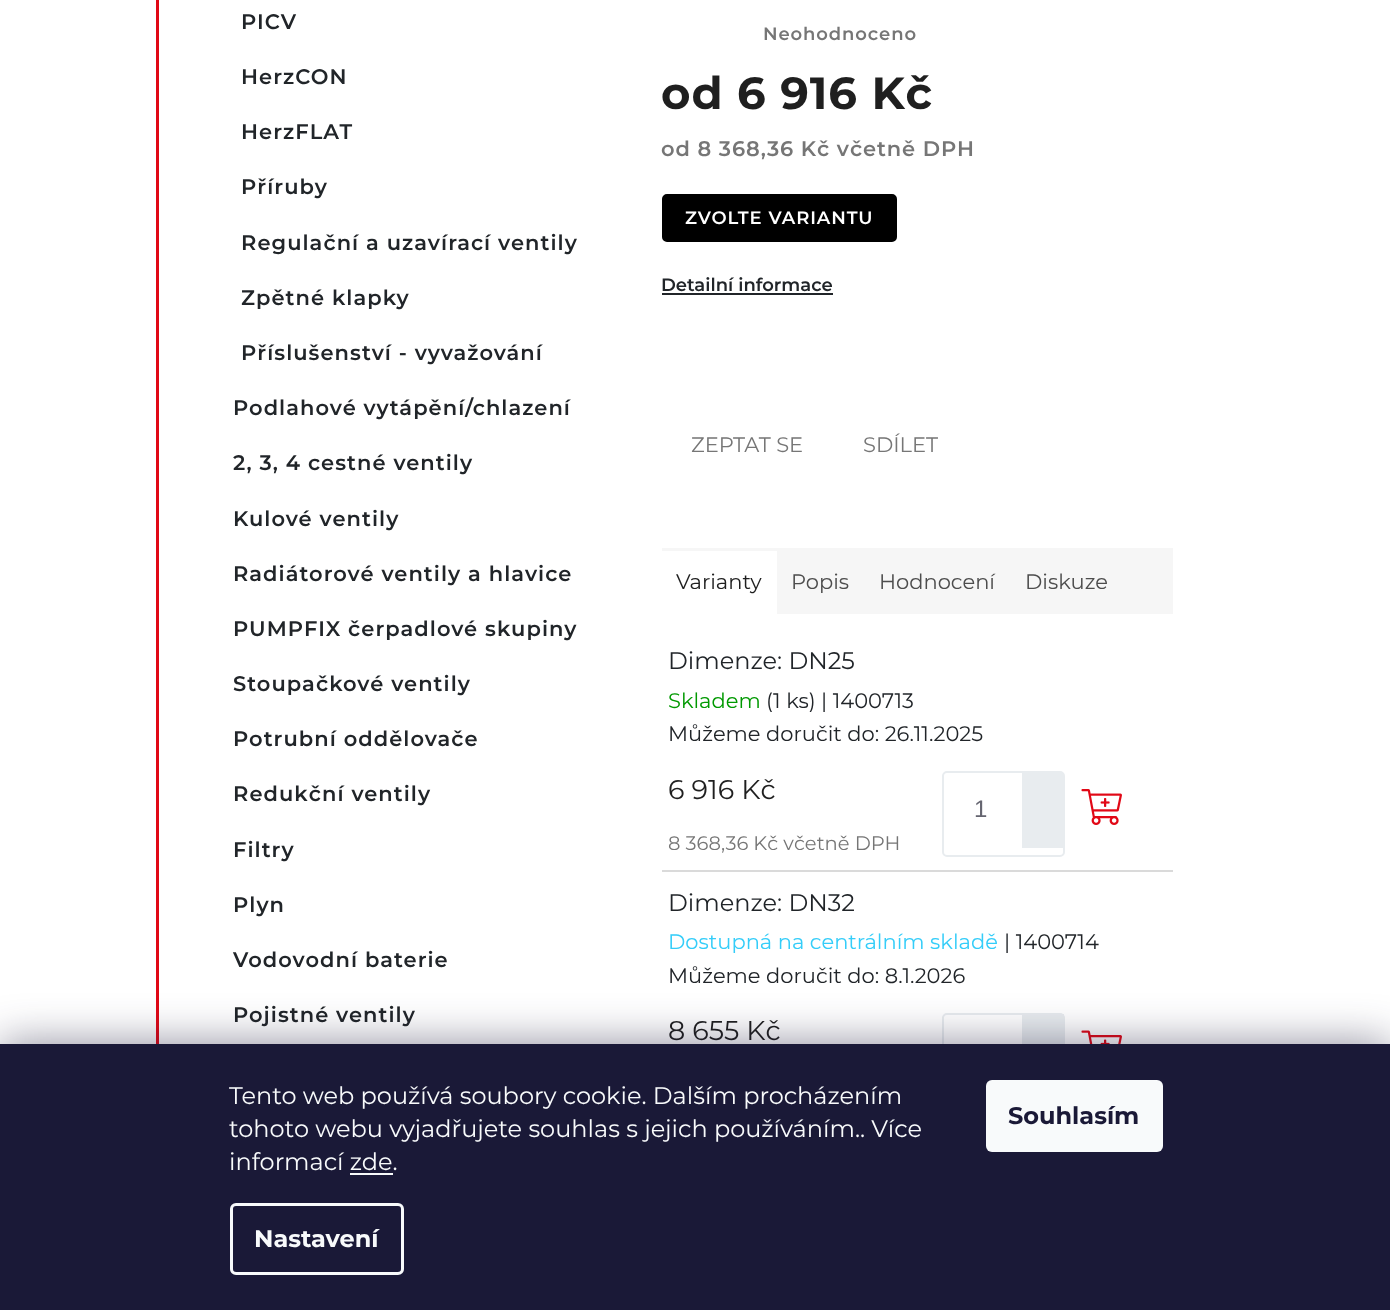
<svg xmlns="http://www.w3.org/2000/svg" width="1390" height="1310">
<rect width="100%" height="100%" fill="#fff"/>
<rect x="156" width="3" height="1044" fill="#e10816"/>
<text x="241" y="29" style="font-family:Montserrat;font-size:21px;font-weight:600;letter-spacing:1.05px;fill:#212529">PICV</text>
<text x="241" y="84" style="font-family:Montserrat;font-size:21px;font-weight:600;letter-spacing:1.05px;fill:#212529">HerzCON</text>
<text x="241" y="139" style="font-family:Montserrat;font-size:21px;font-weight:600;letter-spacing:1.05px;fill:#212529">HerzFLAT</text>
<text x="241" y="194" style="font-family:Montserrat;font-size:21px;font-weight:600;letter-spacing:1.05px;fill:#212529">Příruby</text>
<text x="241" y="250" style="font-family:Montserrat;font-size:21px;font-weight:600;letter-spacing:1.05px;fill:#212529">Regulační a uzavírací ventily</text>
<text x="241" y="305" style="font-family:Montserrat;font-size:21px;font-weight:600;letter-spacing:1.05px;fill:#212529">Zpětné klapky</text>
<text x="241" y="360" style="font-family:Montserrat;font-size:21px;font-weight:600;letter-spacing:1.05px;fill:#212529">Příslušenství - vyvažování</text>
<text x="233" y="415" style="font-family:Montserrat;font-size:21px;font-weight:600;letter-spacing:1.05px;fill:#212529">Podlahové vytápění/chlazení</text>
<text x="233" y="470" style="font-family:Montserrat;font-size:21px;font-weight:600;letter-spacing:1.05px;fill:#212529">2, 3, 4 cestné ventily</text>
<text x="233" y="526" style="font-family:Montserrat;font-size:21px;font-weight:600;letter-spacing:1.05px;fill:#212529">Kulové ventily</text>
<text x="233" y="581" style="font-family:Montserrat;font-size:21px;font-weight:600;letter-spacing:1.05px;fill:#212529">Radiátorové ventily a hlavice</text>
<text x="233" y="636" style="font-family:Montserrat;font-size:21px;font-weight:600;letter-spacing:1.05px;fill:#212529">PUMPFIX čerpadlové skupiny</text>
<text x="233" y="691" style="font-family:Montserrat;font-size:21px;font-weight:600;letter-spacing:1.05px;fill:#212529">Stoupačkové ventily</text>
<text x="233" y="746" style="font-family:Montserrat;font-size:21px;font-weight:600;letter-spacing:1.05px;fill:#212529">Potrubní oddělovače</text>
<text x="233" y="801" style="font-family:Montserrat;font-size:21px;font-weight:600;letter-spacing:1.05px;fill:#212529">Redukční ventily</text>
<text x="233" y="857" style="font-family:Montserrat;font-size:21px;font-weight:600;letter-spacing:1.05px;fill:#212529">Filtry</text>
<text x="233" y="912" style="font-family:Montserrat;font-size:21px;font-weight:600;letter-spacing:1.05px;fill:#212529">Plyn</text>
<text x="233" y="967" style="font-family:Montserrat;font-size:21px;font-weight:600;letter-spacing:1.05px;fill:#212529">Vodovodní baterie</text>
<text x="233" y="1022" style="font-family:Montserrat;font-size:21px;font-weight:600;letter-spacing:1.05px;fill:#212529">Pojistné ventily</text>
<text x="763" y="40" style="font-family:Montserrat;font-size:18px;font-weight:600;letter-spacing:0.9px;fill:#767676">Neohodnoceno</text>
<text x="661" y="109" style="font-family:Montserrat;font-size:45px;font-weight:bold;letter-spacing:0.9px;fill:#1f1f1f">od 6 916 Kč</text>
<text x="661" y="156" style="font-family:Montserrat;font-size:21px;font-weight:600;letter-spacing:0.9px;fill:#767676">od 8 368,36 Kč včetně DPH</text>
<rect x="663" y="195" width="233" height="46" rx="4" fill="#000" stroke="#000" stroke-width="2"/>
<text x="685" y="224" style="font-family:Montserrat;font-size:18px;font-weight:600;letter-spacing:0.9px;fill:#fff">ZVOLTE VARIANTU</text>
<text x="661" y="291" style="font-family:Montserrat;font-size:18px;font-weight:600;fill:#212529">Detailní informace</text>
<rect x="662" y="293" width="171" height="2" fill="#212529"/>
<text x="691" y="452" style="font-family:Montserrat;font-size:21px;fill:#767676">ZEPTAT SE</text>
<text x="863" y="452" style="font-family:Montserrat;font-size:21px;fill:#767676">SDÍLET</text>
<rect x="777" y="548" width="396" height="66" fill="#f6f6f6"/>
<rect x="662" y="548" width="115" height="3" fill="#f6f6f6"/>
<text x="676" y="589" style="font-family:Montserrat;font-size:21px;fill:#1f1f1f">Varianty</text>
<text x="791" y="589" style="font-family:Montserrat;font-size:21px;fill:#4d4d4d">Popis</text>
<text x="879" y="589" style="font-family:Montserrat;font-size:21px;fill:#4d4d4d">Hodnocení</text>
<text x="1025" y="589" style="font-family:Montserrat;font-size:21px;fill:#4d4d4d">Diskuze</text>
<rect x="662" y="870" width="511" height="2" fill="#dadada"/>
<text x="668" y="669" style="font-family:Montserrat;font-size:24px;fill:#212529">Dimenze: DN25</text>
<text x="668" y="708" style="font-family:Montserrat;font-size:21px;fill:#009901">Skladem</text>
<text x="766" y="708" style="font-family:Montserrat;font-size:21px;fill:#212529">(1 ks) | 1400713</text>
<text x="668" y="741" style="font-family:Montserrat;font-size:21px;fill:#212529">Můžeme doručit do: 26.11.2025</text>
<text x="668" y="799" style="font-family:Montserrat;font-size:27px;fill:#1f1f1f">6 916 Kč</text>
<text x="668" y="850" style="font-family:Montserrat;font-size:19.5px;fill:#767676">8 368,36 Kč včetně DPH</text>
<rect x="943" y="772" width="121" height="84" rx="4" fill="none" stroke="#e8ecef" stroke-width="2"/>
<text x="974" y="817" style="font-family:Liberation Sans;font-size:24px;fill:#656570">1</text>
<rect x="1022" y="773" width="41" height="75" fill="#e8ecef"/>
<image x="1081" y="789" width="41" height="36" href="media/1.png"/>
<text x="668" y="911" style="font-family:Montserrat;font-size:24px;fill:#212529">Dimenze: DN32</text>
<text x="668" y="949" style="font-family:Montserrat;font-size:21px;fill:#34cdf9">Dostupná na centrálním skladě</text>
<text x="1004" y="949" style="font-family:Montserrat;font-size:21px;fill:#212529">| 1400714</text>
<text x="668" y="983" style="font-family:Montserrat;font-size:21px;fill:#212529">Můžeme doručit do: 8.1.2026</text>
<text x="668" y="1040" style="font-family:Montserrat;font-size:27px;fill:#1f1f1f">8 655 Kč</text>
<rect x="943" y="1014" width="121" height="83" rx="4" fill="none" stroke="#e8ecef" stroke-width="2"/>
<rect x="1022" y="1014" width="42" height="30" fill="#e8ecef"/>
<image x="1081" y="1030" width="41" height="14" href="media/2.png"/>
<rect y="1044" width="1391" height="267" fill="#1b193980" filter="blur(22.5px)"/>
<rect y="1044" width="1390" height="266" fill="#1a1937"/>
<text x="229" y="1104" style="font-family:Montserrat;font-size:24px;fill:#f8fafb">Tento web používá soubory cookie. Dalším procházením</text>
<text x="229" y="1137" style="font-family:Montserrat;font-size:24px;fill:#f8fafb">tohoto webu vyjadřujete souhlas s jejich používáním.. Více</text>
<text x="229" y="1170" style="font-family:Montserrat;font-size:24px;fill:#f8fafb">informací zde.</text>
<rect x="350" y="1173" width="43" height="2" fill="#f8fafb"/>
<rect x="231.5" y="1204.5" width="171" height="69" rx="4.5" fill="none" stroke="#f8fafb" stroke-width="3"/>
<text x="254" y="1247" style="font-family:Montserrat;font-size:24px;font-weight:bold;fill:#f8fafb">Nastavení</text>
<rect x="986" y="1080" width="177" height="72" rx="6" fill="#f8fafb"/>
<text x="1008" y="1124" style="font-family:Montserrat;font-size:24px;font-weight:bold;fill:#1a1937">Souhlasím</text>
</svg>
